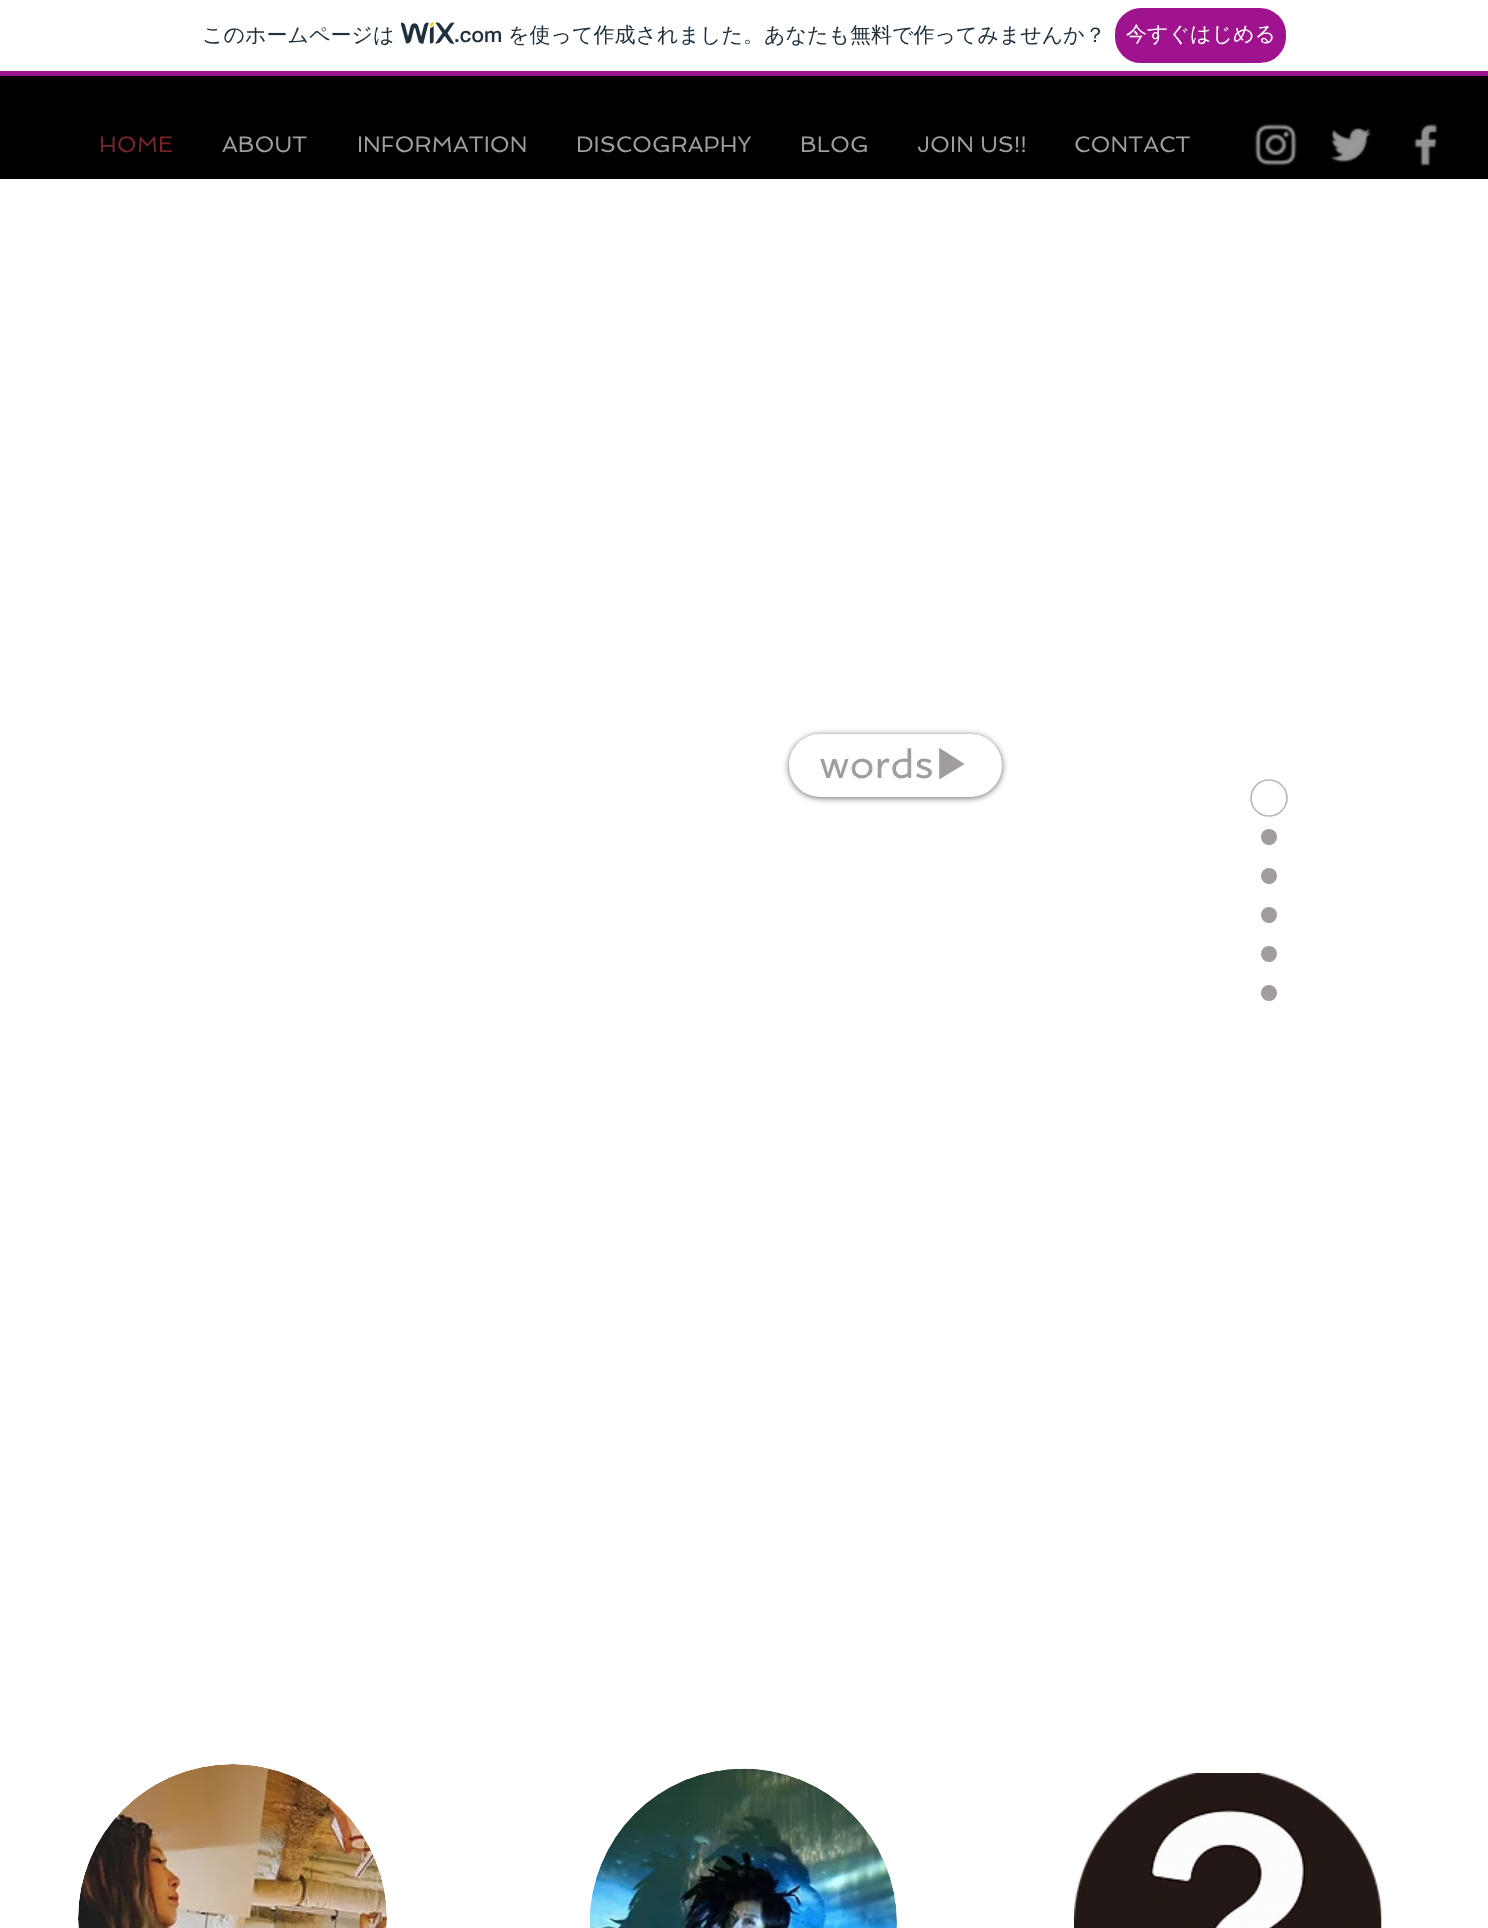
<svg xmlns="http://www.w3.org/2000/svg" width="1488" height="1928">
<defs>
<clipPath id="clip1"><path d="M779 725h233v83h-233zm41.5 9h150c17.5 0 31.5 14 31.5 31.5c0 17.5-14 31.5-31.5 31.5h-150c-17.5 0-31.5-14-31.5-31.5c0-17.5 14-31.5 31.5-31.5z" clip-rule="evenodd"/></clipPath>
</defs>
<rect width="100%" height="100%" fill="#fff"/>
<rect y="71" width="1488" height="5" fill="#a0138e"/>
<text x="202" y="42" style="font-family:WenQuanYi Zen Hei;font-size:21px;font-weight:500;fill:#20303c">このホームページは</text>
<image x="401" y="22" width="54" height="22" href="media/1.png"/>
<text x="454" y="42" style="font-family:'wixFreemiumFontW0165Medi';font-size:21px;font-weight:500;fill:#20303c">.com</text>
<text x="508" y="42" style="font-family:WenQuanYi Zen Hei;font-size:21px;font-weight:500;fill:#20303c">を使って作成されました。あなたも無料で作ってみませんか？</text>
<rect x="1116" y="9" width="169" height="53" rx="25" fill="#a0138e" stroke="#a0138e" stroke-width="2"/>
<text x="1126" y="41" style="font-family:WenQuanYi Zen Hei;font-size:21px;font-weight:500;fill:#fff">今すぐはじめる</text>
<rect y="76" width="1488" height="103" fill="#000"/>
<text x="99" y="152" style="font-family:Spinnaker;font-size:22.5px;fill:#74262c">HOME</text>
<text x="222" y="152" style="font-family:Spinnaker;font-size:22.5px;fill:#a09d9c">ABOUT</text>
<text x="357" y="152" style="font-family:Spinnaker;font-size:22.5px;fill:#a09d9c">INFORMATION</text>
<text x="576" y="152" style="font-family:Spinnaker;font-size:22.5px;fill:#a09d9c">DISCOGRAPHY</text>
<text x="800" y="152" style="font-family:Spinnaker;font-size:22.5px;fill:#a09d9c">BLOG</text>
<text x="917" y="152" style="font-family:Spinnaker;font-size:22.5px;fill:#a09d9c">JOIN US!!</text>
<text x="1074" y="152" style="font-family:Spinnaker;font-size:22.5px;fill:#a09d9c">CONTACT</text>
<image x="1254" y="123" width="43" height="43" href="media/2.png"/>
<image x="1330" y="127" width="42" height="36" href="media/3.png"/>
<image x="1414" y="123" width="24" height="43" href="media/4.png"/>
<g clip-path="url(#clip1)">
<rect x="789" y="735" width="213" height="63" rx="31.5" fill="#00000099" filter="blur(3px)"/>
</g>
<text x="819" y="778" style="font-family:Spinnaker;font-size:39px;fill:#a09d9c">words</text>
<text x="933" y="778" style="font-family:WenQuanYi Zen Hei;font-size:39px;font-weight:500;fill:#a09d9c">▶︎</text>
<image x="78" y="1764" width="309" height="164" href="media/5.png"/>
<image x="589" y="1768" width="308" height="160" href="media/6.png"/>
<image x="1074" y="1773" width="308" height="155" href="media/7.png"/>
<circle cx="1269" cy="798" r="18" fill="none" stroke="#b8b6b5" stroke-width="1.6"/>
<circle cx="1269" cy="837" r="8" fill="#a09d9c"/>
<circle cx="1269" cy="876" r="8" fill="#a09d9c"/>
<circle cx="1269" cy="915" r="8" fill="#a09d9c"/>
<circle cx="1269" cy="954" r="8" fill="#a09d9c"/>
<circle cx="1269" cy="993" r="8" fill="#a09d9c"/>
</svg>
